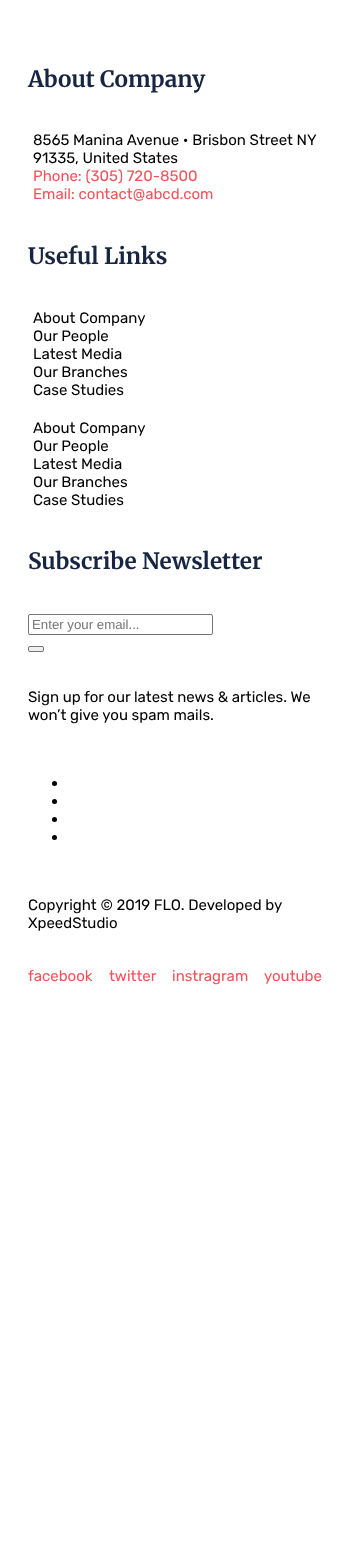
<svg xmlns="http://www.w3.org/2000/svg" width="355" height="1551">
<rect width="100%" height="100%" fill="#fff"/>
<text x="28" y="87" style="font-family:Merriweather;font-size:22.5px;font-weight:bold;fill:#172541">About Company</text>
<text x="33" y="145" style="font-family:Rubik;font-size:15px;fill:#000">8565 Manina Avenue • Brisbon Street NY</text>
<text x="33" y="163" style="font-family:Rubik;font-size:15px;fill:#000">91335, United States</text>
<text x="33" y="181" style="font-family:Rubik;font-size:15px;fill:#f3525a">Phone: (305) 720-8500</text>
<text x="33" y="199" style="font-family:Rubik;font-size:15px;fill:#f3525a">Email: contact@abcd.com</text>
<text x="28" y="264" style="font-family:Merriweather;font-size:22.5px;font-weight:bold;fill:#172541">Useful Links</text>
<text x="33" y="323" style="font-family:Rubik;font-size:15px;fill:#000">About Company</text>
<text x="33" y="341" style="font-family:Rubik;font-size:15px;fill:#000">Our People</text>
<text x="33" y="359" style="font-family:Rubik;font-size:15px;fill:#000">Latest Media</text>
<text x="33" y="377" style="font-family:Rubik;font-size:15px;fill:#000">Our Branches</text>
<text x="33" y="395" style="font-family:Rubik;font-size:15px;fill:#000">Case Studies</text>
<text x="33" y="433" style="font-family:Rubik;font-size:15px;fill:#000">About Company</text>
<text x="33" y="451" style="font-family:Rubik;font-size:15px;fill:#000">Our People</text>
<text x="33" y="469" style="font-family:Rubik;font-size:15px;fill:#000">Latest Media</text>
<text x="33" y="487" style="font-family:Rubik;font-size:15px;fill:#000">Our Branches</text>
<text x="33" y="505" style="font-family:Rubik;font-size:15px;fill:#000">Case Studies</text>
<text x="28" y="569" style="font-family:Merriweather;font-size:22.5px;font-weight:bold;fill:#172541">Subscribe Newsletter</text>
<rect x="28.5" y="614.5" width="184" height="20" rx="1.5" fill="none" stroke="#767676"/>
<text x="32" y="629" style="font-family:Liberation Sans;font-size:13.25px;fill:#757575">Enter your email...</text>
<rect x="28.5" y="646.5" width="15" height="5" rx="1.5" fill="#efefef" stroke="#767676"/>
<text x="28" y="702" style="font-family:Rubik;font-size:15px;fill:#000">Sign up for our latest news &amp; articles. We</text>
<text x="28" y="720" style="font-family:Rubik;font-size:15px;fill:#000">won’t give you spam mails.</text>
<circle cx="54.5" cy="783.5" r="2.5" fill="#000"/>
<circle cx="54.5" cy="801.5" r="2.5" fill="#000"/>
<circle cx="54.5" cy="819.5" r="2.5" fill="#000"/>
<circle cx="54.5" cy="837.5" r="2.5" fill="#000"/>
<text x="28" y="910" style="font-family:Rubik;font-size:15px;fill:#000">Copyright © 2019 FLO. Developed by</text>
<text x="28" y="928" style="font-family:Rubik;font-size:15px;fill:#000">XpeedStudio</text>
<text x="28" y="981" style="font-family:Rubik;font-size:15px;fill:#f3525a">facebook</text>
<text x="109" y="981" style="font-family:Rubik;font-size:15px;fill:#f3525a">twitter</text>
<text x="172" y="981" style="font-family:Rubik;font-size:15px;fill:#f3525a">instragram</text>
<text x="264" y="981" style="font-family:Rubik;font-size:15px;fill:#f3525a">youtube</text>
</svg>
